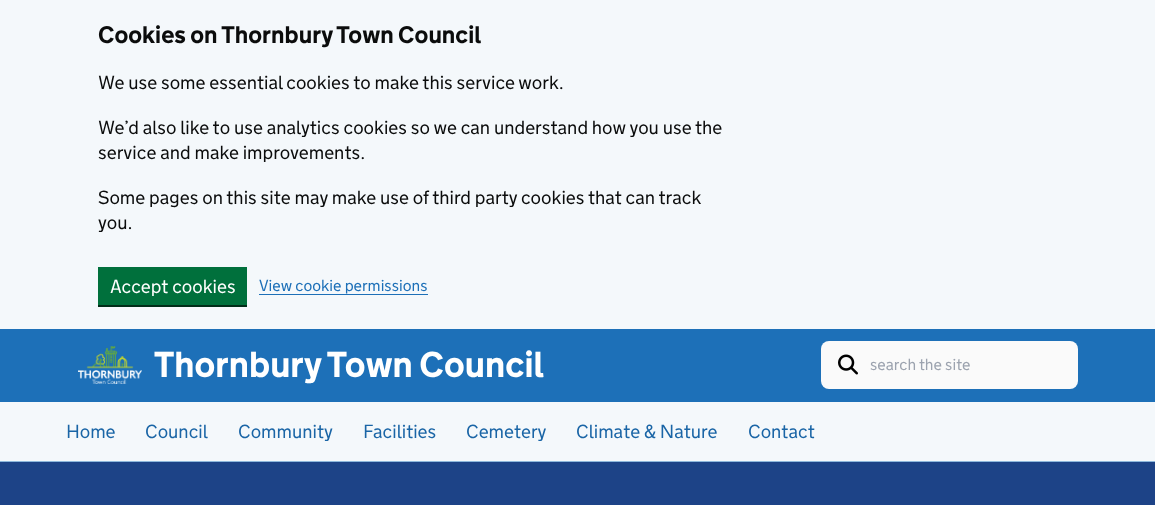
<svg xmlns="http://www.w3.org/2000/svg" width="1155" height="505">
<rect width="100%" height="100%" fill="#f4f8fb"/>
<text x="98" y="43" style="font-family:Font;font-size:24px;font-weight:bold;fill:#0b0c0c">Cookies on Thornbury Town Council</text>
<text x="98" y="89" style="font-family:Font;font-size:19px;font-weight:300;fill:#0b0c0c">We use some essential cookies to make this service work.</text>
<text x="98" y="134" style="font-family:Font;font-size:19px;font-weight:300;fill:#0b0c0c">We’d also like to use analytics cookies so we can understand how you use the</text>
<text x="98" y="159" style="font-family:Font;font-size:19px;font-weight:300;fill:#0b0c0c">service and make improvements.</text>
<text x="98" y="204" style="font-family:Font;font-size:19px;font-weight:300;fill:#0b0c0c">Some pages on this site may make use of third party cookies that can track</text>
<text x="98" y="229" style="font-family:Font;font-size:19px;font-weight:300;fill:#0b0c0c">you.</text>
<rect x="98" y="305" width="149" height="2" fill="#002d18"/>
<rect x="98" y="267" width="149" height="38" fill="#00703c"/>
<text x="110" y="293" style="font-family:Font;font-size:19px;font-weight:300;fill:#fff">Accept cookies</text>
<text x="259" y="291" style="font-family:Font;font-size:16px;font-weight:300;fill:#1d70b8">View cookie permissions</text>
<rect x="259" y="294" width="169" height="1" fill="#1d70b8"/>
<rect y="329" width="1155" height="73" fill="#1d70b8"/>
<image x="78" y="346" width="64" height="38" href="media/1.png"/>
<text x="154" y="377" style="font-family:Font;font-size:36px;font-weight:bold;fill:#fff">Thornbury Town Council</text>
<rect x="821" y="341" width="257" height="48" rx="8" fill="#fafafa"/>
<image x="838" y="354" width="20" height="21" href="media/2.png"/>
<text x="870" y="370" style="font-family:Font;font-size:16px;font-weight:300;fill:#9ca3af">search the site</text>
<rect y="461" width="1155" height="1" fill="#8eb8dc"/>
<text x="66" y="438" style="font-family:Font;font-size:19px;font-weight:300;fill:#1a65a6">Home</text>
<text x="145" y="438" style="font-family:Font;font-size:19px;font-weight:300;fill:#1a65a6">Council</text>
<text x="238" y="438" style="font-family:Font;font-size:19px;font-weight:300;fill:#1a65a6">Community</text>
<text x="363" y="438" style="font-family:Font;font-size:19px;font-weight:300;fill:#1a65a6">Facilities</text>
<text x="466" y="438" style="font-family:Font;font-size:19px;font-weight:300;fill:#1a65a6">Cemetery</text>
<text x="576" y="438" style="font-family:Font;font-size:19px;font-weight:300;fill:#1a65a6">Climate &amp; Nature</text>
<text x="748" y="438" style="font-family:Font;font-size:19px;font-weight:300;fill:#1a65a6">Contact</text>
<rect y="462" width="1155" height="43" fill="#1d4387"/>
</svg>
